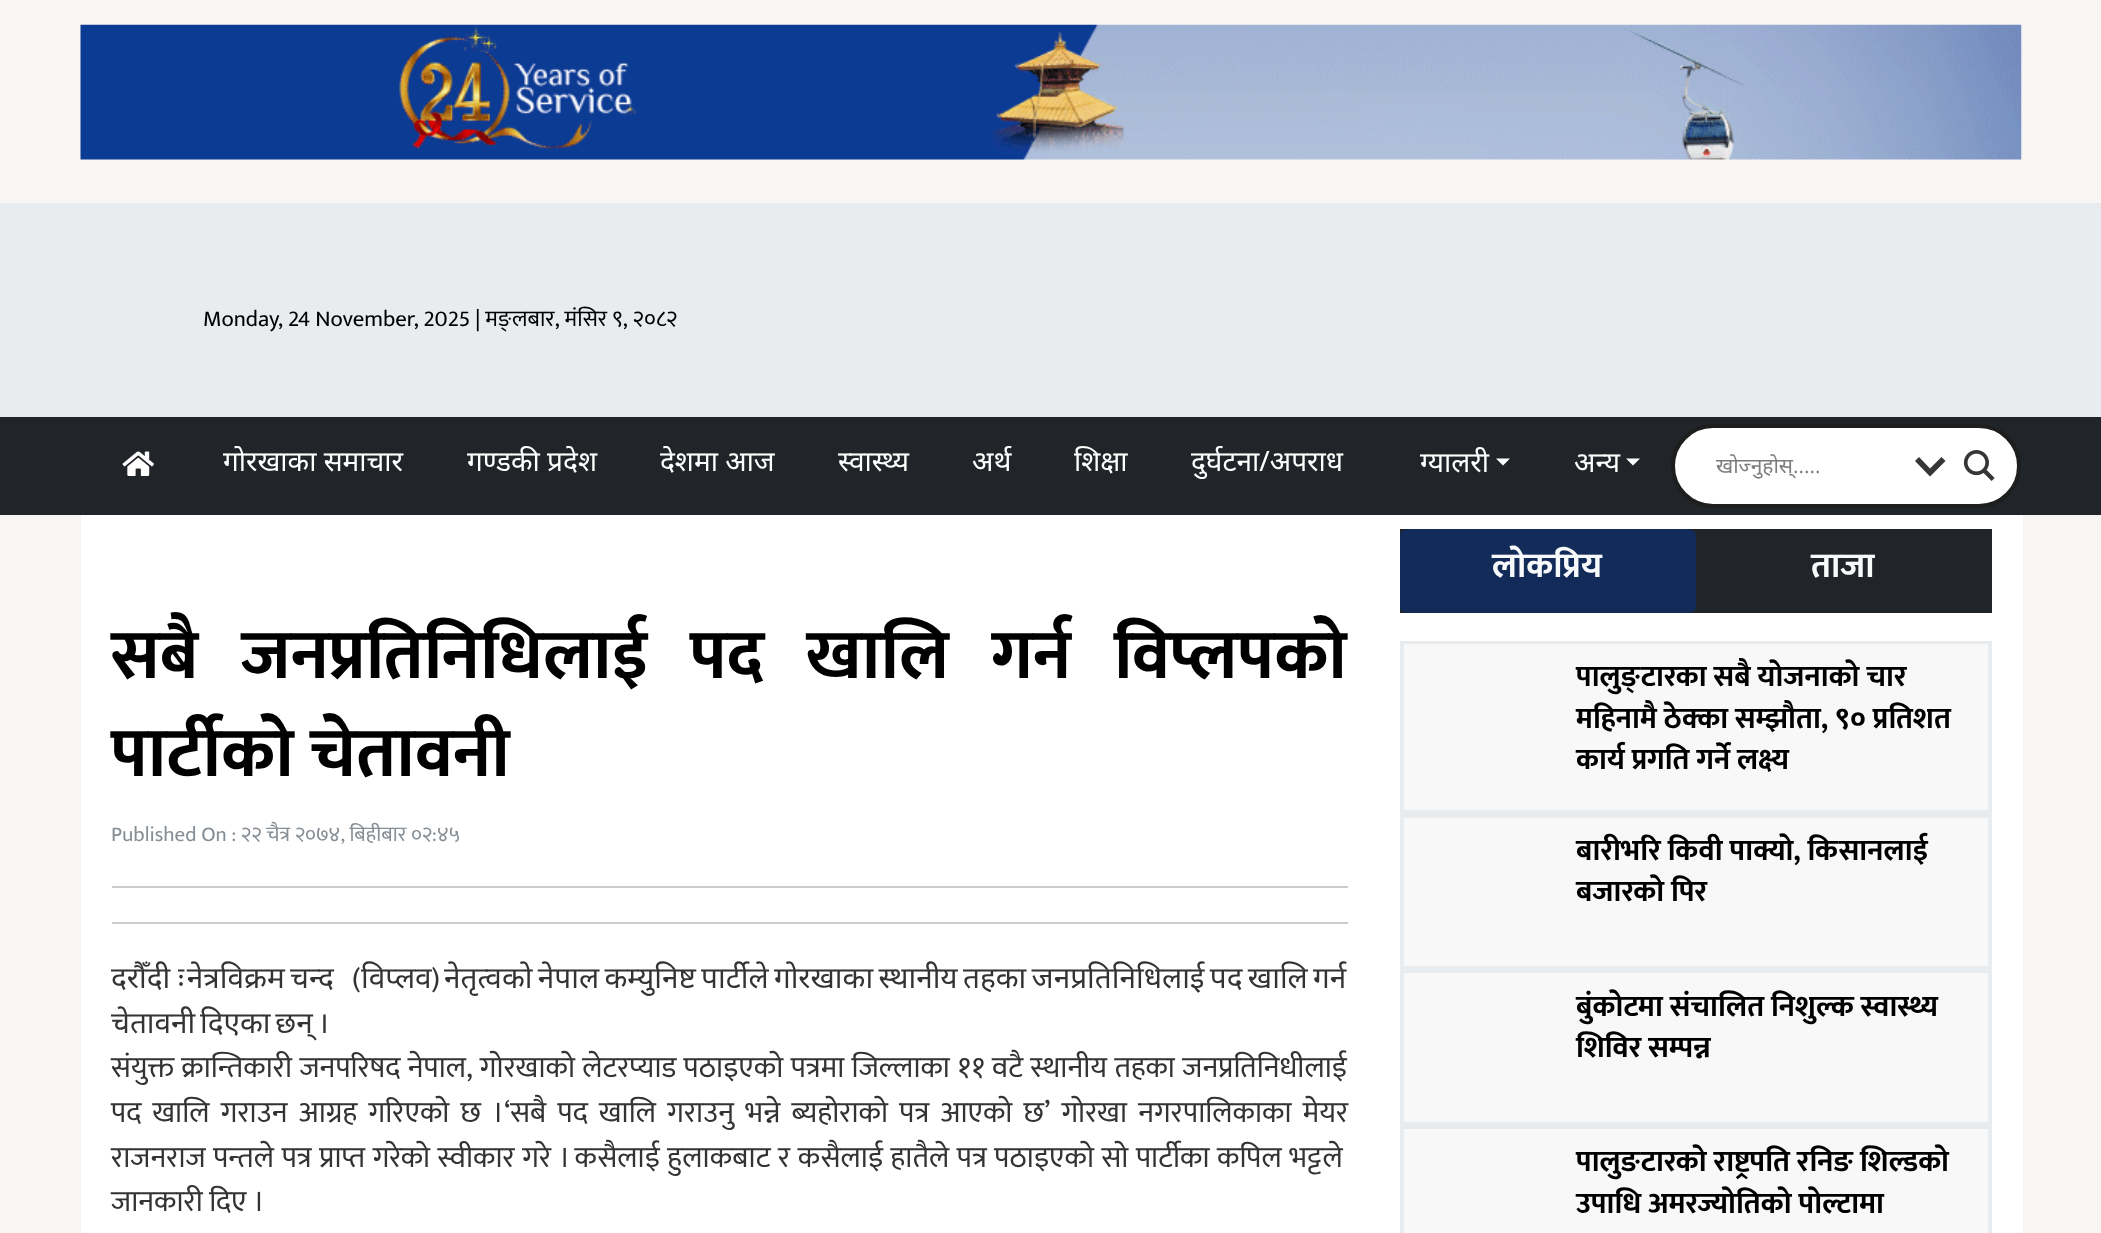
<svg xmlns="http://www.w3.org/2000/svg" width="2101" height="1233">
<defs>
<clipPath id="clip1"><rect x="1715" y="450" width="182" height="30"/></clipPath>
</defs>
<rect width="100%" height="100%" fill="#f8f5f5"/>
<image x="80" y="24" width="1942" height="136" href="media/1.png"/>
<rect y="203" width="2101" height="214" fill="#e9ecef"/>
<text x="203" y="326" style="font-family:Mukta;font-size:22.75px;fill:#000">Monday, 24 November, 2025 | मङ्लबार, मंसिर ९, २०८२</text>
<rect y="417" width="2101" height="98" fill="#212529"/>
<image x="122" y="451" width="32" height="25" href="media/2.png"/>
<text x="223" y="471" style="font-family:Noto Sans;font-size:28px;fill:#fff">गोरखाका समाचार</text>
<text x="467" y="471" style="font-family:Noto Sans;font-size:28px;fill:#fff">गण्डकी प्रदेश</text>
<text x="660" y="471" style="font-family:Noto Sans;font-size:28px;fill:#fff">देशमा आज</text>
<text x="838" y="471" style="font-family:Noto Sans;font-size:28px;fill:#fff">स्वास्थ्य</text>
<text x="972" y="471" style="font-family:Noto Sans;font-size:28px;fill:#fff">अर्थ</text>
<text x="1074" y="471" style="font-family:Noto Sans;font-size:28px;fill:#fff">शिक्षा</text>
<text x="1191" y="471" style="font-family:Noto Sans;font-size:28px;fill:#fff">दुर्घटना/अपराध</text>
<text x="1420" y="472" style="font-family:Noto Sans;font-size:28px;fill:#fff">ग्यालरी</text>
<path d="M1496 458.5h14l-7 7z" fill="#fff"/>
<text x="1574" y="472" style="font-family:Noto Sans;font-size:28px;fill:#fff">अन्य</text>
<path d="M1626 458.5h14l-7 7z" fill="#fff"/>
<rect x="1673" y="426" width="346" height="80" rx="40" fill="#fff" stroke="#1e1e1e" stroke-width="4"/>
<g clip-path="url(#clip1)">
<text x="1716" y="473" style="font-family:Noto Sans;font-size:21px;fill:#7d7d7d">खोज्नुहोस्</text>
</g>
<text x="1793" y="473" style="font-family:Open Sans;font-size:21px;fill:#7d7d7d">.....</text>
<path d="M1941.5 457l4 4l-15.5 15.5l-15-15.5l4-4l11 11.5z" fill="#363636"/>
<image x="1963" y="450" width="32" height="31" href="media/3.png"/>
<rect x="81" y="515" width="1942" height="718" fill="#fff"/>
<text x="111" y="678" word-spacing="26.5" style="font-family:Mukta;font-size:70px;font-weight:bold;fill:#000">सबै जनप्रतिनिधिलाई पद खालि गर्न विप्लपको</text>
<text x="111" y="776" style="font-family:Mukta;font-size:70px;font-weight:bold;fill:#000">पार्टीको चेतावनी</text>
<text x="111" y="841" style="font-family:Mukta;font-size:21px;fill:#868e96">Published On : २२ चैत्र २०७४, बिहीबार ०२:४५</text>
<rect x="112" y="886" width="1236" height="2" fill="#ccc"/>
<rect x="112" y="922" width="1236" height="2" fill="#ccc"/>
<text x="111" y="988" word-spacing="-2.4" style="font-family:Noto Sans;font-size:29.75px;fill:#333">दरौँदी ः नेत्रविक्रम चन्द</text>
<text x="352" y="988" style="font-family:Mukta;font-size:29.75px;fill:#333">(</text>
<text x="361" y="988" style="font-family:Noto Sans;font-size:29.75px;fill:#333">विप्लव</text>
<text x="431" y="988" style="font-family:Mukta;font-size:29.75px;fill:#333">)</text>
<text x="444" y="988" word-spacing="-2.4" style="font-family:Noto Sans;font-size:29.75px;fill:#333">नेतृत्वको नेपाल कम्युनिष्ट पार्टीले गोरखाका स्थानीय तहका जनप्रतिनिधिलाई पद खालि गर्न</text>
<text x="111" y="1033" word-spacing="-3" style="font-family:Noto Sans;font-size:29.75px;fill:#333">चेतावनी दिएका छन् ।</text>
<text x="111" y="1077" word-spacing="0.75" style="font-family:Mukta;font-size:29.75px;fill:#333">संयुक्त क्रान्तिकारी जनपरिषद नेपाल, गोरखाको लेटरप्याड पठाइएको पत्रमा जिल्लाका ११ वटै स्थानीय तहका जनप्रतिनिधीलाई</text>
<text x="111" y="1122" word-spacing="4.6" style="font-family:Mukta;font-size:29.75px;fill:#333">पद खालि गराउन आग्रह गरिएको छ ।‘सबै पद खालि गराउनु भन्ने ब्यहोराको पत्र आएको छ’ गोरखा नगरपालिकाका मेयर</text>
<text x="111" y="1167" word-spacing="0.9" style="font-family:Mukta;font-size:29.75px;fill:#333">राजनराज पन्तले पत्र प्राप्त गरेको स्वीकार गरे । कसैलाई हुलाकबाट र कसैलाई हातैले पत्र पठाइएको सो पार्टीका कपिल भट्टले</text>
<text x="111" y="1211" style="font-family:Mukta;font-size:29.75px;fill:#333">जानकारी दिए ।</text>
<rect x="1400" y="529" width="592" height="84" fill="#212529"/>
<rect x="1400" y="529" width="296" height="84" rx="7" fill="#132b58"/>
<text x="1492" y="577" style="font-family:Mukta;font-size:35px;font-weight:bold;fill:#f8f9fa">लोकप्रिय</text>
<text x="1811" y="577" style="font-family:Mukta;font-size:35px;font-weight:bold;fill:#f8f9fa">ताजा</text>
<rect x="1404" y="644" width="584" height="589" fill="#f9f8f8"/>
<rect x="1401" y="642" width="590" height="171" fill="none" stroke="#e9ecef" stroke-width="2"/>
<rect x="1403" y="643" width="586" height="168" fill="none" stroke="#e9ecef" stroke-width="2"/>
<text x="1576" y="686" style="font-family:Mukta;font-size:29.75px;font-weight:bold;fill:#000">पालुङ्टारका सबै योजनाको चार</text>
<text x="1576" y="728" style="font-family:Mukta;font-size:29.75px;font-weight:bold;fill:#000">महिनामै ठेक्का सम्झौता, ९० प्रतिशत</text>
<text x="1576" y="769" style="font-family:Mukta;font-size:29.75px;font-weight:bold;fill:#000">कार्य प्रगति गर्ने लक्ष्य</text>
<rect x="1401" y="815" width="590" height="154" fill="none" stroke="#e9ecef" stroke-width="2"/>
<rect x="1403" y="817" width="586" height="150" fill="none" stroke="#e9ecef" stroke-width="2"/>
<text x="1576" y="860" style="font-family:Mukta;font-size:29.75px;font-weight:bold;fill:#000">बारीभरि किवी पाक्यो, किसानलाई</text>
<text x="1576" y="901" style="font-family:Mukta;font-size:29.75px;font-weight:bold;fill:#000">बजारको पिर</text>
<rect x="1401" y="971" width="590" height="153" fill="none" stroke="#e9ecef" stroke-width="2"/>
<rect x="1403" y="972" width="586" height="151" fill="none" stroke="#e9ecef" stroke-width="2"/>
<text x="1576" y="1016" style="font-family:Mukta;font-size:29.75px;font-weight:bold;fill:#000">बुंकोटमा संचालित निशुल्क स्वास्थ्य</text>
<text x="1576" y="1057" style="font-family:Mukta;font-size:29.75px;font-weight:bold;fill:#000">शिविर सम्पन्न</text>
<rect x="1401" y="1126" width="590" height="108" fill="none" stroke="#e9ecef" stroke-width="2"/>
<rect x="1403" y="1128" width="586" height="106" fill="none" stroke="#e9ecef" stroke-width="2"/>
<text x="1576" y="1171" style="font-family:Mukta;font-size:29.75px;font-weight:bold;fill:#000">पालुङटारको राष्ट्रपति रनिङ शिल्डको</text>
<text x="1576" y="1213" style="font-family:Mukta;font-size:29.75px;font-weight:bold;fill:#000">उपाधि अमरज्योतिको पोल्टामा</text>
</svg>
